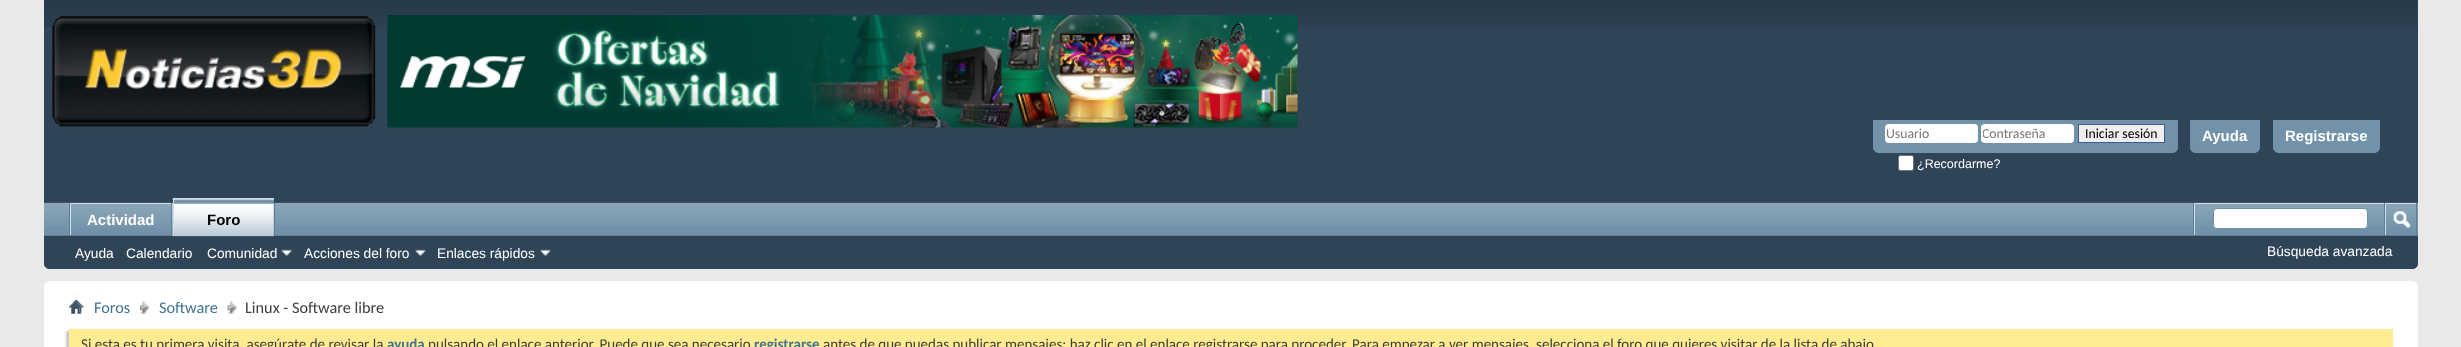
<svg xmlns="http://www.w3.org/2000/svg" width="2461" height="347">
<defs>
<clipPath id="clip1"><rect x="1983" y="125" width="90" height="16"/></clipPath>
</defs>
<rect width="100%" height="100%" fill="#e9e9e9"/>
<path d="M44 0h2374v263c0 3.5-2.5 6-6 6h-2362c-3.5 0-6-2.5-6-6z" fill="#2f4456"/>
<image x="44" y="0" width="2373" height="27" href="media/1.png"/>
<image x="52" y="16" width="324" height="111" href="media/2.png"/>
<image x="387" y="15" width="911" height="113" href="media/3.png"/>
<path d="M1873 120h305v27c0 3.5-2.5 6-6 6h-293c-3.5 0-6-2.5-6-6z" fill="#7192a8"/>
<rect x="1885" y="124" width="93" height="19" rx="4" fill="#fff"/>
<text x="1886" y="138" style="font-family:Carlito;font-size:13.75px;fill:#777">Usuario</text>
<rect x="1981" y="124" width="93" height="19" rx="4" fill="#fff"/>
<g clip-path="url(#clip1)">
<text x="1982" y="138" style="font-family:Carlito;font-size:13.75px;fill:#777">Contraseña</text>
</g>
<rect x="2078.5" y="124.5" width="86" height="18" fill="#efefef" stroke="#415d8d"/>
<text x="2085" y="138" style="font-family:Carlito;font-size:13.75px;fill:#000">Iniciar sesión</text>
<rect x="1898.5" y="155.5" width="15" height="15" rx="2" fill="#fff" stroke="#767676"/>
<text x="1917" y="168" style="font-family:Liberation Sans;font-size:12.5px;fill:#fff">¿Recordarme?</text>
<path d="M2190 120h70v27c0 3.5-2.5 6-6 6h-58c-3.5 0-6-2.5-6-6z" fill="#7192a8"/>
<text x="2202" y="141" style="font-family:Liberation Sans;font-size:15px;font-weight:bold;fill:#fff">Ayuda</text>
<path d="M2273 120h107v27c0 3.5-2.5 6-6 6h-95c-3.5 0-6-2.5-6-6z" fill="#7192a8"/>
<text x="2285" y="141" style="font-family:Liberation Sans;font-size:15px;font-weight:bold;fill:#fff">Registrarse</text>
<path d="M44 203h2374v60c0 3.5-2.5 6-6 6h-2362c-3.5 0-6-2.5-6-6z" fill="#2f4456"/>
<rect x="44" y="203" width="2374" height="32" fill="#7192a8"/>
<image x="44" y="202" width="2374" height="25" href="media/4.png"/>
<rect x="171" y="203" width="1" height="33" fill="#5a7f97"/>
<rect x="69" y="203" width="1" height="33" fill="#5a7f97"/>
<rect x="71" y="204" width="100" height="23" fill="#7192a8"/>
<image x="71" y="204" width="101" height="24" href="media/5.png"/>
<rect x="70" y="203" width="101" height="1" fill="#cedfeb"/>
<rect x="70" y="203" width="1" height="33" fill="#cedfeb"/>
<text x="87" y="225" style="font-family:Liberation Sans;font-size:15px;font-weight:bold;fill:#fff">Actividad</text>
<rect x="274" y="203" width="1" height="32" fill="#5a7f97"/>
<rect x="44" y="235" width="2374" height="1" fill="#5a7f97"/>
<rect x="174" y="199" width="100" height="37" fill="#7192a8"/>
<image x="172" y="198" width="102" height="39" href="media/6.png"/>
<rect x="173" y="198" width="101" height="1" fill="#cedfeb"/>
<rect x="173" y="198" width="1" height="38" fill="#cedfeb"/>
<text x="207" y="225" style="font-family:Liberation Sans;font-size:15px;font-weight:bold;fill:#000">Foro</text>
<text x="75" y="258" style="font-family:Liberation Sans;font-size:13.75px;fill:#fff">Ayuda</text>
<text x="126" y="258" style="font-family:Liberation Sans;font-size:13.75px;fill:#fff">Calendario</text>
<text x="207" y="258" style="font-family:Liberation Sans;font-size:13.75px;fill:#fff">Comunidad</text>
<image x="281" y="249" width="12" height="7" href="media/7.png"/>
<text x="304" y="258" style="font-family:Liberation Sans;font-size:13.75px;fill:#fff">Acciones del foro</text>
<image x="415" y="249" width="11" height="7" href="media/8.png"/>
<text x="437" y="258" style="font-family:Liberation Sans;font-size:13.75px;fill:#fff">Enlaces rápidos</text>
<image x="540" y="249" width="11" height="7" href="media/9.png"/>
<rect x="2193" y="203" width="1" height="32" fill="#5a7f97"/>
<rect x="2194" y="203" width="190" height="1" fill="#cedfeb"/>
<rect x="2194" y="203" width="1" height="32" fill="#cedfeb"/>
<rect x="2213.5" y="208.5" width="154" height="20" rx="3.5" fill="#fff" stroke="#6b91ab"/>
<rect x="2416" y="203" width="1" height="32" fill="#5a7f97"/>
<rect x="2384" y="203" width="1" height="32" fill="#5a7f97"/>
<rect x="2385" y="203" width="31" height="1" fill="#cedfeb"/>
<rect x="2385" y="203" width="1" height="32" fill="#cedfeb"/>
<image x="2393" y="211" width="18" height="18" href="media/10.png"/>
<text x="2267" y="256" style="font-family:Liberation Sans;font-size:13.75px;fill:#fff">Búsqueda avanzada</text>
<rect x="44" y="281" width="2374" height="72" rx="6" fill="#fff"/>
<image x="68" y="299" width="16" height="15" href="media/11.png"/>
<image x="140" y="301" width="9" height="13" href="media/12.png"/>
<text x="94" y="313" style="font-family:Carlito;font-size:16.25px;fill:#417394">Foros</text>
<image x="227" y="301" width="10" height="13" href="media/13.png"/>
<text x="159" y="313" style="font-family:Carlito;font-size:16.25px;fill:#417394">Software</text>
<text x="245" y="313" style="font-family:Carlito;font-size:16.25px;fill:#3e3e3e">Linux - Software libre</text>
<rect x="66" y="331" width="2324" height="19" fill="#c8c8c8" filter="blur(1px)"/>
<rect x="69" y="329" width="2324" height="18" fill="#ffeb90"/>
<text x="81" y="349" style="font-family:Carlito;font-size:15px;fill:#3e3e3e">Si esta es tu primera visita, asegúrate de revisar la</text>
<text x="387" y="349" style="font-family:Carlito;font-size:15px;font-weight:bold;fill:#417394">ayuda</text>
<text x="428" y="349" style="font-family:Carlito;font-size:15px;fill:#3e3e3e">pulsando el enlace anterior. Puede que sea necesario</text>
<text x="754" y="349" style="font-family:Carlito;font-size:15px;font-weight:bold;fill:#417394">registrarse</text>
<text x="823" y="349" style="font-family:Carlito;font-size:15px;fill:#3e3e3e">antes de que puedas publicar mensajes: haz clic en el enlace registrarse para proceder. Para empezar a ver mensajes, selecciona el foro que quieres visitar de la lista de abajo</text>
</svg>
